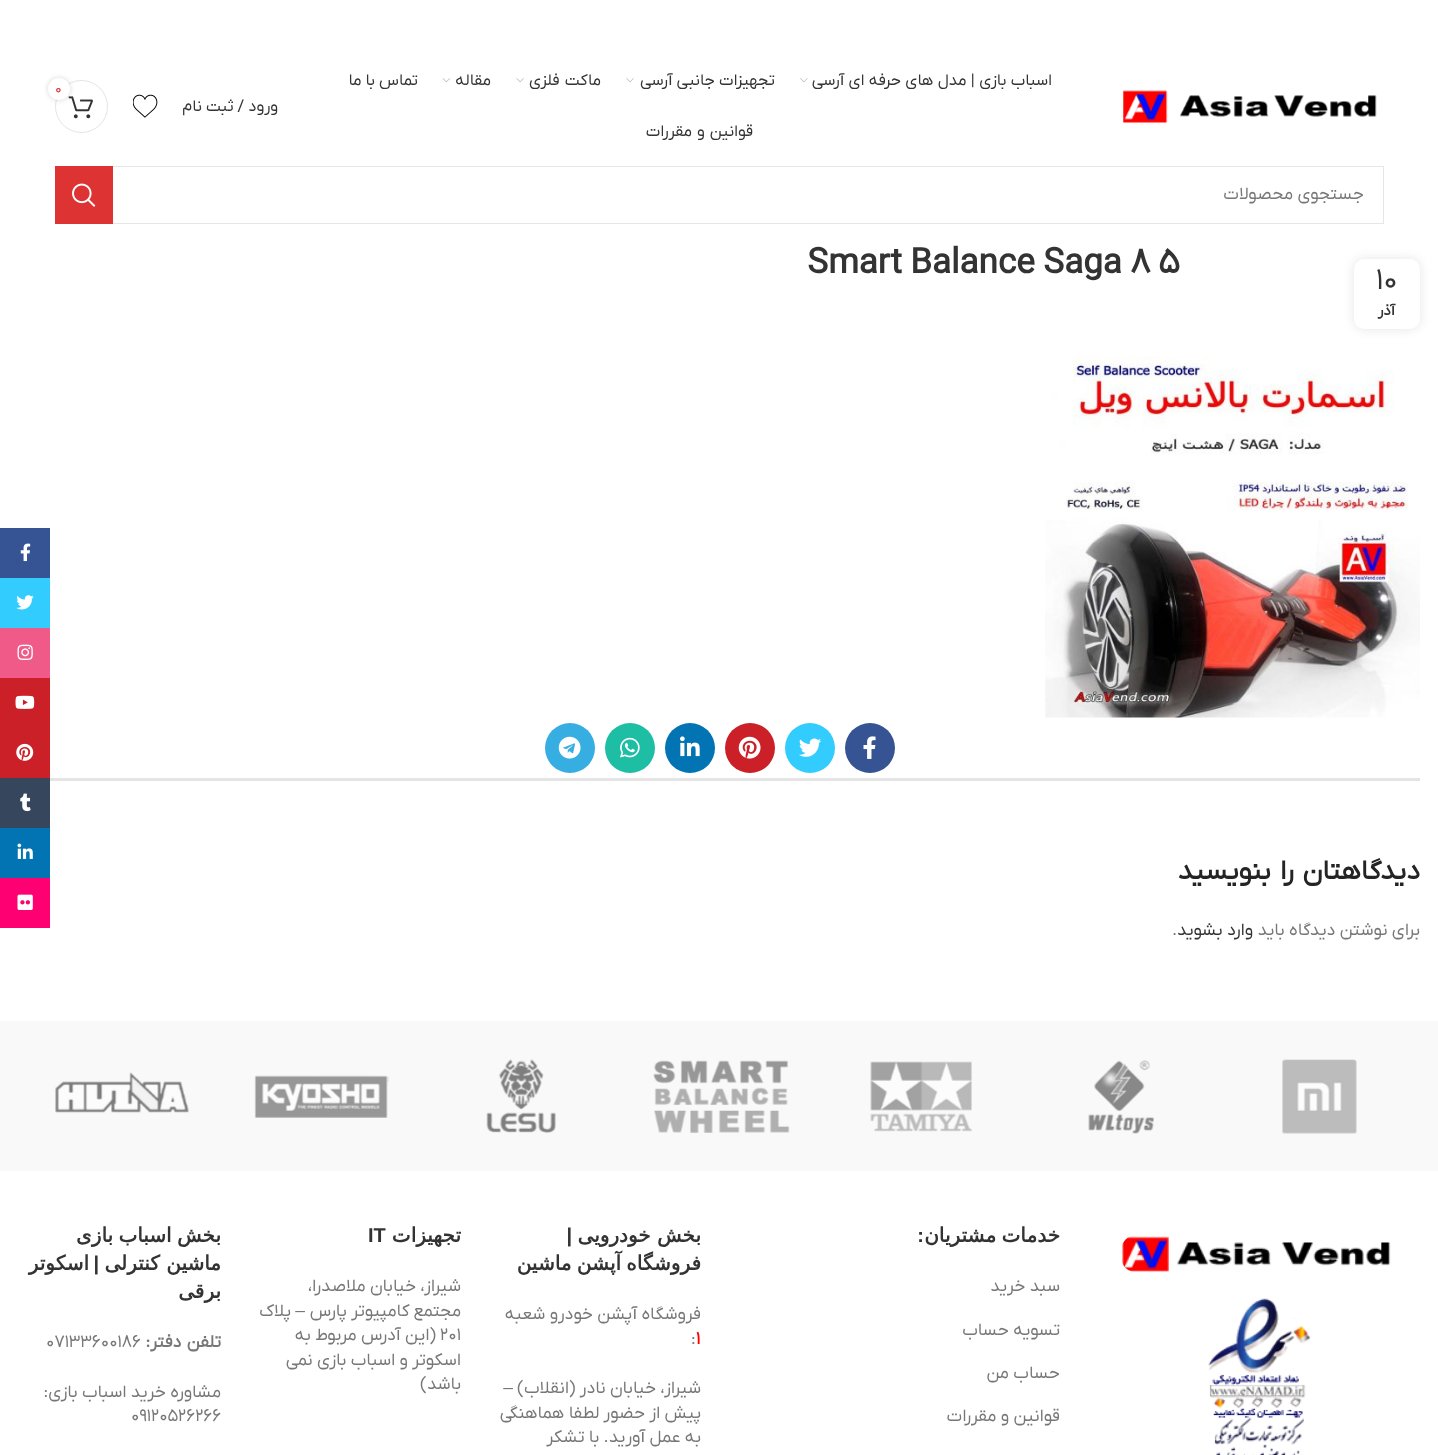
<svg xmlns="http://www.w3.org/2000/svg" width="1438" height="1455">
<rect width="100%" height="100%" fill="#fff"/>
<image x="1123" y="90" width="254" height="33" href="media/1.png"/>
<text x="1052" y="85" word-spacing="0.25" style="font-family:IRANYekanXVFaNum;font-size:16.25px;direction:rtl;fill:#333">اسباب بازی | مدل های حرفه ای آرسی</text>
<image x="800" y="78" width="8" height="5" href="media/2.png"/>
<text x="775" y="85" style="font-family:IRANYekanXVFaNum;font-size:16.25px;direction:rtl;fill:#333">تجهیزات جانبی آرسی</text>
<image x="626" y="78" width="8" height="5" href="media/3.png"/>
<text x="601" y="85" word-spacing="1" style="font-family:IRANYekanXVFaNum;font-size:16.25px;direction:rtl;fill:#333">ماکت فلزی</text>
<image x="516" y="78" width="8" height="5" href="media/3.png"/>
<text x="491" y="85" style="font-family:IRANYekanXVFaNum;font-size:16.25px;direction:rtl;fill:#333">مقاله</text>
<image x="442" y="78" width="8" height="5" href="media/4.png"/>
<text x="418" y="85" style="font-family:IRANYekanXVFaNum;font-size:16.25px;direction:rtl;fill:#333">تماس با ما</text>
<text x="753" y="136" word-spacing="1" style="font-family:IRANYekanXVFaNum;font-size:16.25px;direction:rtl;fill:#333">قوانین و مقررات</text>
<circle cx="81.5" cy="106.5" r="26" fill="none" stroke="#e4e4e4"/>
<image x="68" y="96" width="25" height="23" href="media/5.png"/>
<rect x="48" y="78" width="22" height="22" rx="11" fill="#0000002b" filter="blur(2.5px)"/>
<circle cx="59" cy="89" r="11" fill="#fff"/>
<text x="55" y="93" style="font-family:IRANYekanXVFaNum;font-size:14px;fill:#d33">0</text>
<text x="278" y="111" style="font-family:IRANYekanXVFaNum;font-size:16.25px;direction:rtl;fill:#333">ورود / ثبت نام</text>
<image x="133" y="94" width="25" height="24" href="media/6.png"/>
<rect x="55.5" y="166.5" width="1328" height="57" fill="none" stroke="#e6e6e6"/>
<text x="1364" y="199" style="font-family:IRANYekanXVFaNum;font-size:17.5px;direction:rtl;fill:#777">جستجوی محصولات</text>
<rect x="55" y="166" width="58" height="58" fill="#d33"/>
<image x="72" y="183" width="24" height="24" href="media/7.png"/>
<text x="807" y="273" word-spacing="-0.5" style="font-family:IRANYekanXVFaNum;font-size:35px;font-weight:bold;fill:#333">Smart Balance Saga 8 5</text>
<rect x="1354" y="259" width="66" height="70" rx="10" fill="#0000001a" filter="blur(5.5px)"/>
<rect x="1354" y="259" width="66" height="70" rx="10" fill="#fff"/>
<text x="1376" y="289" style="font-family:IRANYekanXVFaNum;font-size:30px;fill:#333">۱۰</text>
<text x="1395" y="315" style="font-family:IRANYekanXVFaNum;font-size:15px;font-weight:bold;direction:rtl;fill:#333">آذر</text>
<image x="1045" y="356" width="375" height="362" href="media/8.png"/>
<circle cx="870" cy="748" r="25" fill="#365493"/>
<image x="863" y="736" width="13" height="23" href="media/9.png"/>
<circle cx="810" cy="748" r="25" fill="#3cf"/>
<image x="799" y="738" width="23" height="19" href="media/10.png"/>
<circle cx="750" cy="748" r="25" fill="#cb2027"/>
<image x="738" y="736" width="23" height="23" href="media/11.png"/>
<circle cx="690" cy="748" r="25" fill="#0274b3"/>
<image x="680" y="736" width="20" height="21" href="media/12.png"/>
<circle cx="630" cy="748" r="25" fill="#1ebea5"/>
<image x="620" y="737" width="20" height="21" href="media/13.png"/>
<circle cx="570" cy="748" r="25" fill="#37aee2"/>
<image x="558" y="736" width="23" height="23" href="media/14.png"/>
<rect x="50" y="778" width="1370" height="3" fill="#e4e4e4"/>
<text x="1420" y="879" word-spacing="2" style="font-family:IRANYekanXVFaNum;font-size:27.5px;font-weight:bold;direction:rtl;fill:#242424">دیدگاهتان را بنویسید</text>
<text x="1420" y="935" style="font-family:IRANYekanXVFaNum;font-size:17.5px;direction:rtl;fill:#777">برای نوشتن دیدگاه باید</text>
<text x="1253" y="935" style="font-family:IRANYekanXVFaNum;font-size:17.5px;direction:rtl;fill:#333">وارد بشوید</text>
<text x="1172" y="935" style="font-family:IRANYekanXVFaNum;font-size:17.5px;fill:#777">.</text>
<rect y="1021" width="1438" height="150" fill="#f9f9f9"/>
<image x="1282" y="1059" width="75" height="75" href="media/15.png"/>
<image x="1088" y="1060" width="66" height="74" href="media/16.png"/>
<image x="870" y="1061" width="102" height="71" href="media/17.png"/>
<image x="653" y="1060" width="137" height="73" href="media/18.png"/>
<image x="486" y="1059" width="70" height="74" href="media/19.png"/>
<image x="254" y="1075" width="135" height="43" href="media/20.png"/>
<image x="55" y="1072" width="134" height="41" href="media/21.png"/>
<image x="1122" y="1236" width="269" height="36" href="media/22.png"/>
<image x="1208" y="1298" width="103" height="157" href="media/23.png"/>
<text x="1060" y="1242" word-spacing="-1" style="font-family:DejaVu Sans;font-size:20px;font-weight:bold;direction:rtl;fill:#333">خدمات مشتریان</text>
<text x="924" y="1242" style="font-family:Liberation Sans;font-size:20px;font-weight:bold;direction:rtl;fill:#333">:</text>
<text x="1060" y="1291" style="font-family:IRANYekanXVFaNum;font-size:17.5px;direction:rtl;fill:#777">سبد خرید</text>
<text x="1060" y="1335" style="font-family:IRANYekanXVFaNum;font-size:17.5px;direction:rtl;fill:#777">تسویه حساب</text>
<text x="1060" y="1378" style="font-family:IRANYekanXVFaNum;font-size:17.5px;direction:rtl;fill:#777">حساب من</text>
<text x="1060" y="1421" style="font-family:IRANYekanXVFaNum;font-size:17.5px;direction:rtl;fill:#777">قوانین و مقررات</text>
<text x="701" y="1242" style="font-family:DejaVu Sans;font-size:20px;font-weight:bold;direction:rtl;fill:#333">بخش خودرویی</text>
<text x="572" y="1242" style="font-family:Liberation Sans;font-size:20px;font-weight:bold;direction:rtl;fill:#333">|</text>
<text x="701" y="1270" word-spacing="-1" style="font-family:DejaVu Sans;font-size:20px;font-weight:bold;direction:rtl;fill:#333">فروشگاه آپشن ماشین</text>
<text x="701" y="1319" style="font-family:IRANYekanXVFaNum;font-size:17.5px;direction:rtl;fill:#777">فروشگاه آپشن خودرو شعبه</text>
<text x="696" y="1344" style="font-family:IRANYekanXVFaNum;font-size:17.5px;font-weight:bold;fill:#f00">1</text>
<text x="691" y="1344" style="font-family:IRANYekanXVFaNum;font-size:17.5px;fill:#777">:</text>
<text x="701" y="1393" style="font-family:IRANYekanXVFaNum;font-size:17.5px;direction:rtl;fill:#777">شیراز، خیابان نادر (انقلاب)</text>
<text x="513" y="1393" style="font-family:Liberation Sans;font-size:17.5px;direction:rtl;fill:#777">–</text>
<text x="701" y="1418" style="font-family:IRANYekanXVFaNum;font-size:17.5px;direction:rtl;fill:#777">پیش از حضور لطفا هماهنگی</text>
<text x="701" y="1442" style="font-family:IRANYekanXVFaNum;font-size:17.5px;direction:rtl;fill:#777">به عمل آورید. با تشکر</text>
<text x="461" y="1242" style="font-family:DejaVu Sans;font-size:20px;font-weight:bold;direction:rtl;fill:#333">تجهیزات</text>
<text x="368" y="1242" style="font-family:Liberation Sans;font-size:20px;font-weight:bold;fill:#333">IT</text>
<text x="461" y="1291" style="font-family:IRANYekanXVFaNum;font-size:17.5px;direction:rtl;fill:#777">شیراز، خیابان ملاصدرا،</text>
<text x="461" y="1316" style="font-family:IRANYekanXVFaNum;font-size:17.5px;direction:rtl;fill:#777">مجتمع کامپیوتر پارس</text>
<text x="305" y="1316" style="font-family:Liberation Sans;font-size:17.5px;direction:rtl;fill:#777">–</text>
<text x="291" y="1316" style="font-family:IRANYekanXVFaNum;font-size:17.5px;direction:rtl;fill:#777">پلاک</text>
<text x="440" y="1340" style="font-family:IRANYekanXVFaNum;font-size:17.5px;fill:#777">201</text>
<text x="436" y="1340" style="font-family:IRANYekanXVFaNum;font-size:17.5px;direction:rtl;fill:#777">(این آدرس مربوط به</text>
<text x="461" y="1365" style="font-family:IRANYekanXVFaNum;font-size:17.5px;direction:rtl;fill:#777">اسکوتر و اسباب بازی نمی</text>
<text x="461" y="1389" style="font-family:IRANYekanXVFaNum;font-size:17.5px;direction:rtl;fill:#777">باشد)</text>
<text x="221" y="1242" word-spacing="-1" style="font-family:DejaVu Sans;font-size:20px;font-weight:bold;direction:rtl;fill:#333">بخش اسباب بازی</text>
<text x="221" y="1270" style="font-family:DejaVu Sans;font-size:20px;font-weight:bold;direction:rtl;fill:#333">ماشین کنترلی</text>
<text x="99" y="1270" style="font-family:Liberation Sans;font-size:20px;font-weight:bold;direction:rtl;fill:#333">|</text>
<text x="89" y="1270" style="font-family:DejaVu Sans;font-size:20px;font-weight:bold;direction:rtl;fill:#333">اسکوتر</text>
<text x="221" y="1298" style="font-family:DejaVu Sans;font-size:20px;font-weight:bold;direction:rtl;fill:#333">برقی</text>
<text x="221" y="1347" word-spacing="1" style="font-family:IRANYekanXVFaNum;font-size:17.5px;font-weight:bold;direction:rtl;fill:#777">تلفن دفتر:</text>
<text x="46" y="1347" style="font-family:IRANYekanXVFaNum;font-size:17.5px;fill:#777">07133600186</text>
<text x="221" y="1397" style="font-family:IRANYekanXVFaNum;font-size:17.5px;direction:rtl;fill:#777">مشاوره خرید اسباب بازی:</text>
<text x="131" y="1421" style="font-family:IRANYekanXVFaNum;font-size:17.5px;fill:#777">09120526266</text>
<rect y="528" width="50" height="50" fill="#365493"/>
<image x="20" y="543" width="11" height="19" href="media/24.png"/>
<rect y="578" width="50" height="50" fill="#3cf"/>
<image x="16" y="595" width="18" height="15" href="media/25.png"/>
<rect y="628" width="50" height="50" fill="#ef5a88"/>
<image x="17" y="644" width="16" height="16" href="media/26.png"/>
<rect y="678" width="50" height="100" fill="#cb2027"/>
<image x="15" y="695" width="20" height="14" href="media/27.png"/>
<image x="16" y="743" width="18" height="18" href="media/28.png"/>
<rect y="778" width="50" height="50" fill="#36465d"/>
<image x="20" y="793" width="11" height="19" href="media/29.png"/>
<rect y="828" width="50" height="50" fill="#0274b3"/>
<image x="17" y="843" width="16" height="16" href="media/30.png"/>
<rect y="878" width="50" height="50" fill="#fe0072"/>
<image x="17" y="894" width="16" height="16" href="media/31.png"/>
</svg>
